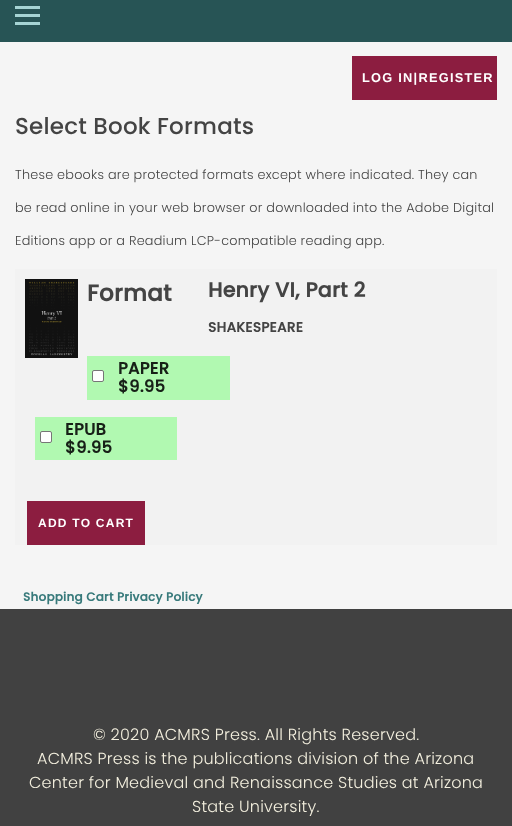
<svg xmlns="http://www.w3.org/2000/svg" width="512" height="826">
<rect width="100%" height="100%" fill="#f5f5f5"/>
<rect width="512" height="42" fill="#275455"/>
<rect x="15" y="14" width="25" height="3" fill="#a6d4d4"/>
<rect x="15" y="6" width="25" height="3" fill="#a6d4d4"/>
<rect x="15" y="22" width="25" height="3" fill="#a6d4d4"/>
<rect x="352" y="56" width="145" height="44" fill="#8c1d40"/>
<text x="362" y="82" style="font-family:Liberation Sans;font-size:12.8px;font-weight:bold;letter-spacing:1.25px;fill:#fff">LOG IN|REGISTER</text>
<text x="15" y="134" style="font-family:Poppins;font-size:23px;font-weight:500;letter-spacing:0.23px;fill:#444">Select Book Formats</text>
<text x="15" y="179" style="font-family:Poppins;font-size:12.8px;font-weight:300;letter-spacing:0.23px;fill:#444">These ebooks are protected formats except where indicated. They can</text>
<text x="15" y="212" style="font-family:Poppins;font-size:12.8px;font-weight:300;letter-spacing:0.23px;fill:#444">be read online in your web browser or downloaded into the Adobe Digital</text>
<text x="15" y="245" style="font-family:Poppins;font-size:12.8px;font-weight:300;letter-spacing:0.23px;fill:#444">Editions app or a Readium LCP-compatible reading app.</text>
<rect x="15" y="269" width="482" height="276" fill="#f2f2f2"/>
<image x="25" y="279" width="53" height="79" href="media/1.png"/>
<text x="208" y="297" style="font-family:Poppins;font-size:20.5px;font-weight:bold;letter-spacing:0.23px;fill:#444">Henry VI, Part 2</text>
<text x="208" y="332" style="font-family:Poppins;font-size:13.75px;font-weight:bold;letter-spacing:0.23px;fill:#444">SHAKESPEARE</text>
<text x="87" y="301" style="font-family:Poppins;font-size:23px;font-weight:bold;letter-spacing:0.23px;fill:#444">Format</text>
<rect x="87" y="356" width="143" height="44" fill="#b1f9b1"/>
<rect x="92.5" y="370.5" width="11" height="11" rx="1.5" fill="#fff" stroke="#767676"/>
<text x="118" y="374" style="font-family:Poppins;font-size:16.5px;font-weight:bold;letter-spacing:0.23px;fill:#172017">PAPER</text>
<text x="118" y="392" style="font-family:Poppins;font-size:16.5px;font-weight:bold;letter-spacing:0.23px;fill:#172017">$9.95</text>
<rect x="35" y="417" width="142" height="43" fill="#b1f9b1"/>
<rect x="40.5" y="431.5" width="11" height="11" rx="1.5" fill="#fff" stroke="#767676"/>
<text x="65" y="435" style="font-family:Poppins;font-size:16.5px;font-weight:bold;letter-spacing:0.23px;fill:#172017">EPUB</text>
<text x="65" y="453" style="font-family:Poppins;font-size:16.5px;font-weight:bold;letter-spacing:0.23px;fill:#172017">$9.95</text>
<rect x="27" y="501" width="118" height="44" fill="#8c1d40"/>
<text x="38" y="527" style="font-family:Liberation Sans;font-size:12px;font-weight:bold;letter-spacing:1.25px;fill:#fff">ADD TO CART</text>
<text x="23" y="601" style="font-family:Poppins;font-size:12px;font-weight:bold;letter-spacing:0.23px;fill:#387a7b">Shopping Cart Privacy Policy</text>
<rect y="609" width="512" height="217" fill="#414141"/>
<text x="93" y="740" style="font-family:Poppins;font-size:16px;font-weight:300;letter-spacing:0.23px;fill:#f4f0df">© 2020 ACMRS Press. All Rights Reserved.</text>
<text x="37" y="764" style="font-family:Poppins;font-size:16px;font-weight:300;letter-spacing:0.23px;fill:#f4f0df">ACMRS Press is the publications division of the Arizona</text>
<text x="29" y="788" style="font-family:Poppins;font-size:16px;font-weight:300;letter-spacing:0.23px;fill:#f4f0df">Center for Medieval and Renaissance Studies at Arizona</text>
<text x="192" y="812" style="font-family:Poppins;font-size:16px;font-weight:300;letter-spacing:0.23px;fill:#f4f0df">State University.</text>
</svg>
